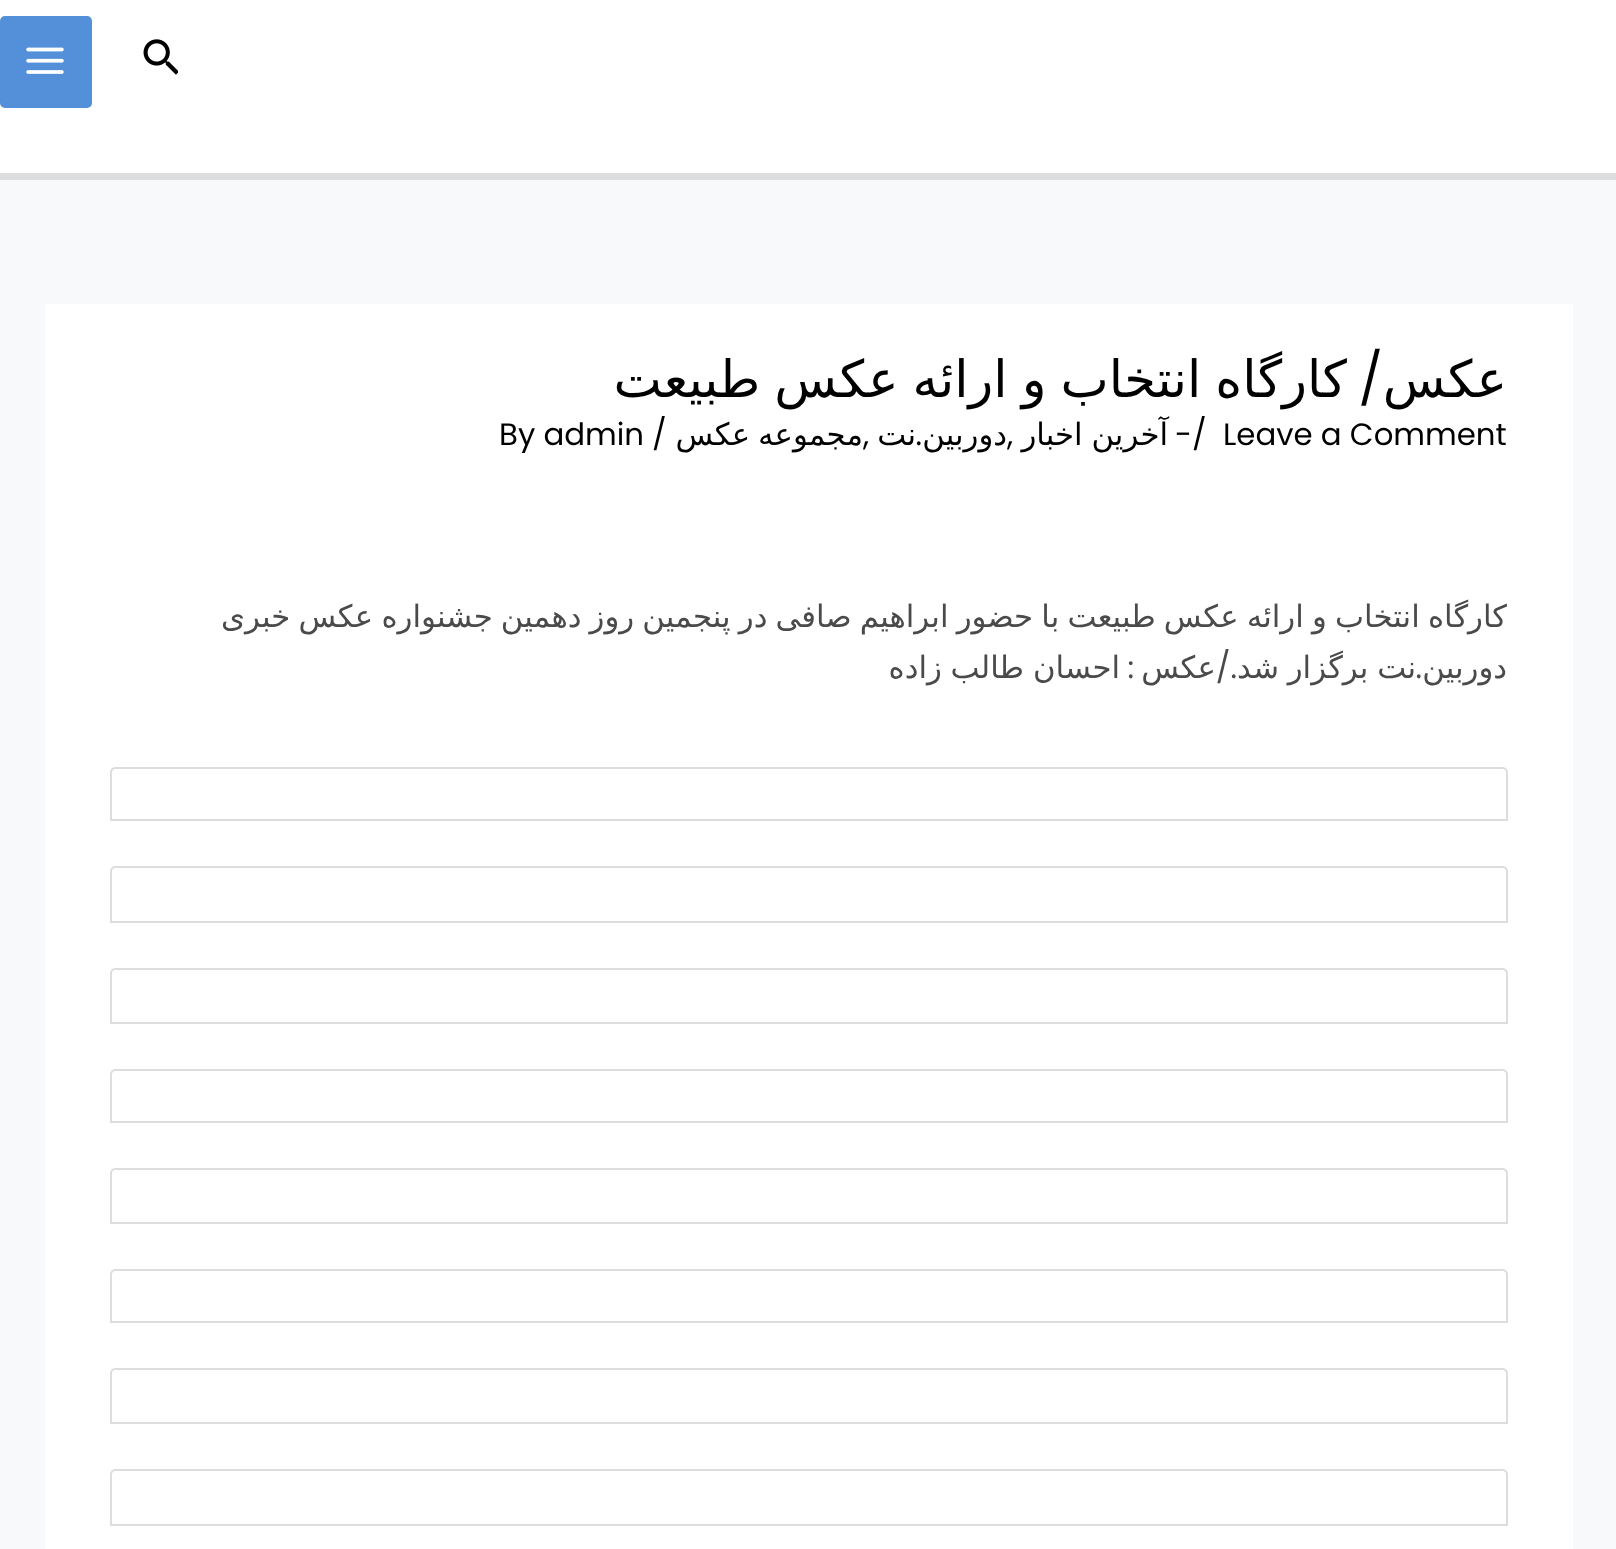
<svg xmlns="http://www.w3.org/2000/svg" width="1616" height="1549">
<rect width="100%" height="100%" fill="#f7f9fb"/>
<rect width="1616" height="173" fill="#fff"/>
<rect y="173" width="1616" height="7" fill="#ddd"/>
<image x="143" y="39" width="35" height="36" href="media/1.png"/>
<rect y="16" width="92" height="92" rx="5" fill="#5390d9"/>
<image x="26" y="47" width="38" height="27" href="media/2.png"/>
<rect x="45" y="304" width="1528" height="1245" fill="#fff"/>
<text x="1507" y="397" style="font-family:DejaVu Sans;font-size:51.25px;direction:rtl;fill:#000">عکس</text>
<text x="1383" y="397" style="font-family:Poppins;font-size:51.25px;direction:rtl;fill:#000">/</text>
<text x="1347" y="397" word-spacing="-2.25" style="font-family:DejaVu Sans;font-size:51.25px;direction:rtl;fill:#000">کارگاه انتخاب و ارائه عکس طبیعت</text>
<text x="1223" y="445" style="font-family:Poppins;font-size:30.8px;fill:#000">Leave a Comment</text>
<text x="1192" y="445" style="font-family:Poppins;font-size:30.8px;fill:#000">/</text>
<text x="1192" y="445" style="font-family:Poppins;font-size:30.8px;direction:rtl;fill:#000">-</text>
<text x="1168" y="445" word-spacing="-1" style="font-family:DejaVu Sans;font-size:30.8px;direction:rtl;fill:#000">آخرین اخبار</text>
<text x="1007" y="445" style="font-family:DejaVu Sans;font-size:30.8px;direction:rtl;fill:#000">دوربين</text>
<text x="916" y="445" style="font-family:DejaVu Sans;font-size:30.8px;direction:rtl;fill:#000">نت</text>
<text x="863" y="445" word-spacing="-2" style="font-family:DejaVu Sans;font-size:30.8px;direction:rtl;fill:#000">مجموعه عکس</text>
<text x="652" y="445" style="font-family:Poppins;font-size:30.8px;fill:#000">/</text>
<text x="499" y="445" style="font-family:Poppins;font-size:30.8px;fill:#000">By admin</text>
<text x="1007" y="445" style="font-family:Poppins;font-size:30.8px;fill:#000">,</text>
<text x="922" y="445" style="font-family:Poppins;font-size:30.8px;direction:rtl;fill:#000">.</text>
<text x="863" y="445" style="font-family:Poppins;font-size:30.8px;fill:#000">,</text>
<text x="1507" y="627" word-spacing="-1.6" style="font-family:DejaVu Sans;font-size:30.8px;direction:rtl;fill:#4a4a4a">کارگاه انتخاب و ارائه عکس طبیعت با حضور ابراهیم صافی در پنجمین روز دهمین جشنواره عکس خبری</text>
<text x="1507" y="678" style="font-family:DejaVu Sans;font-size:30.8px;direction:rtl;fill:#4a4a4a">دوربین</text>
<text x="1422" y="678" style="font-family:Poppins;font-size:30.8px;direction:rtl;fill:#4a4a4a">.</text>
<text x="1416" y="678" word-spacing="-1" style="font-family:DejaVu Sans;font-size:30.8px;direction:rtl;fill:#4a4a4a">نت برگزار شد</text>
<text x="1237" y="678" style="font-family:Poppins;font-size:30.8px;direction:rtl;fill:#4a4a4a">./</text>
<text x="1216" y="678" style="font-family:DejaVu Sans;font-size:30.8px;direction:rtl;fill:#4a4a4a">عکس</text>
<text x="1134" y="678" style="font-family:Poppins;font-size:30.8px;direction:rtl;fill:#4a4a4a">:</text>
<text x="1120" y="678" word-spacing="-1" style="font-family:DejaVu Sans;font-size:30.8px;direction:rtl;fill:#4a4a4a">احسان طالب زاده</text>
<path d="M115 768h1388c2 0 4 2 4 4v48h-1396v-48c0-2 2-4 4-4z" fill="none" stroke="#ddd" stroke-width="2"/>
<path d="M115 867h1388c2 0 4 2 4 4v51h-1396v-51c0-2 2-4 4-4z" fill="none" stroke="#ddd" stroke-width="2"/>
<path d="M115 969h1388c2 0 4 2 4 4v50h-1396v-50c0-2 2-4 4-4z" fill="none" stroke="#ddd" stroke-width="2"/>
<path d="M115 1070h1388c2 0 4 2 4 4v48h-1396v-48c0-2 2-4 4-4z" fill="none" stroke="#ddd" stroke-width="2"/>
<path d="M115 1169h1388c2 0 4 2 4 4v50h-1396v-50c0-2 2-4 4-4z" fill="none" stroke="#ddd" stroke-width="2"/>
<path d="M115 1270h1388c2 0 4 2 4 4v48h-1396v-48c0-2 2-4 4-4z" fill="none" stroke="#ddd" stroke-width="2"/>
<path d="M115 1369h1388c2 0 4 2 4 4v50h-1396v-50c0-2 2-4 4-4z" fill="none" stroke="#ddd" stroke-width="2"/>
<path d="M115 1470h1388c2 0 4 2 4 4v51h-1396v-51c0-2 2-4 4-4z" fill="none" stroke="#ddd" stroke-width="2"/>
</svg>
